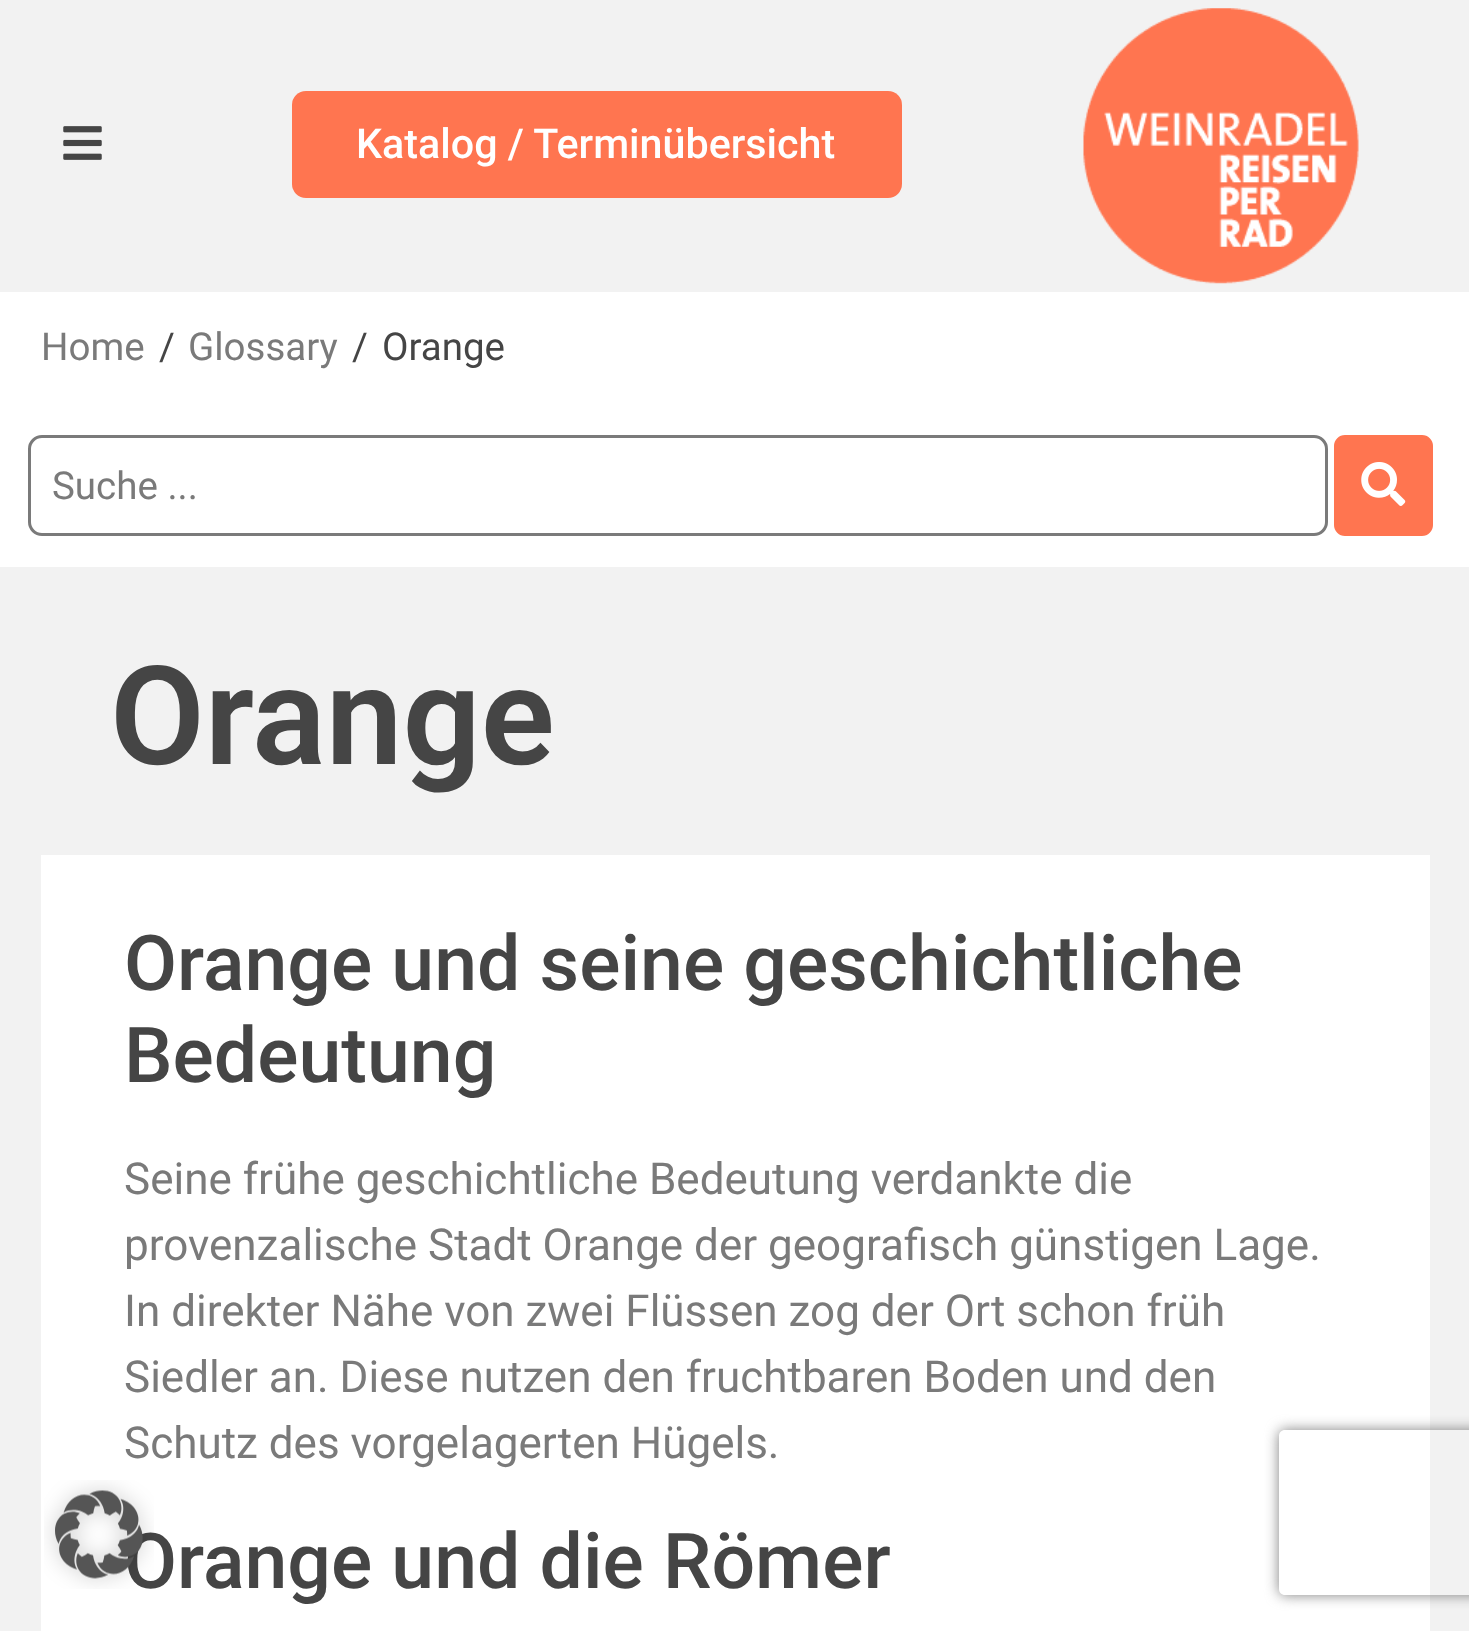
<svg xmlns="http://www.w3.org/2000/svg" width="1469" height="1631">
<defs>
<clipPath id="clip1"><path d="M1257 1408h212v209h-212zm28 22h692c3.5 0 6 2.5 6 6v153c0 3.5-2.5 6-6 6h-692c-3.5 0-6-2.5-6-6v-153c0-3.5 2.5-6 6-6z" clip-rule="evenodd"/></clipPath>
</defs>
<rect width="100%" height="100%" fill="#f2f2f2"/>
<image x="63" y="126" width="39" height="34" href="media/1.png"/>
<rect x="292" y="91" width="610" height="107" rx="14" fill="#ff7550"/>
<text x="356" y="158" style="font-family:Roboto;font-size:41.25px;font-weight:500;fill:#fff">Katalog / Terminübersicht</text>
<image x="1083" y="8" width="276" height="276" href="media/2.png"/>
<rect y="292" width="1469" height="275" fill="#fff"/>
<text x="41" y="360" style="font-family:Roboto;font-size:38.5px;fill:#7a7a7a">Home</text>
<text x="159" y="360" style="font-family:Roboto;font-size:38.5px;fill:#454545">/</text>
<text x="188" y="360" style="font-family:Roboto;font-size:38.5px;fill:#7a7a7a">Glossary</text>
<text x="352" y="360" style="font-family:Roboto;font-size:38.5px;fill:#454545">/</text>
<text x="382" y="360" style="font-family:Roboto;font-size:38.5px;fill:#454545">Orange</text>
<rect x="29.5" y="436.5" width="1297" height="98" rx="12.5" fill="none" stroke="#7a7a7a" stroke-width="3"/>
<text x="52" y="499" style="font-family:Roboto;font-size:38.5px;fill:#7a7a7a">Suche ...</text>
<rect x="1332.5" y="433.5" width="102" height="104" rx="12.5" fill="#ff7550" stroke="#fff" stroke-width="3"/>
<image x="1361" y="462" width="45" height="44" href="media/3.png"/>
<rect x="41" y="855" width="1389" height="776" fill="#fff"/>
<text x="124" y="1588" style="font-family:Roboto;font-size:77px;font-weight:500;fill:#454545">Orange und die Römer</text>
<image x="44" y="1480" width="110" height="109" href="media/4.png"/>
<text x="110" y="764" style="font-family:Roboto;font-size:137.5px;font-weight:600;fill:#454545">Orange</text>
<text x="124" y="990" style="font-family:Roboto;font-size:77px;font-weight:500;fill:#454545">Orange und seine geschichtliche</text>
<text x="124" y="1082" style="font-family:Roboto;font-size:77px;font-weight:500;fill:#454545">Bedeutung</text>
<text x="124" y="1194" style="font-family:Roboto;font-size:44px;fill:#7a7a7a">Seine frühe geschichtliche Bedeutung verdankte die</text>
<text x="124" y="1260" style="font-family:Roboto;font-size:44px;fill:#7a7a7a">provenzalische Stadt Orange der geografisch günstigen Lage.</text>
<text x="124" y="1326" style="font-family:Roboto;font-size:44px;fill:#7a7a7a">In direkter Nähe von zwei Flüssen zog der Ort schon früh</text>
<text x="124" y="1392" style="font-family:Roboto;font-size:44px;fill:#7a7a7a">Siedler an. Diese nutzen den fruchtbaren Boden und den</text>
<text x="124" y="1458" style="font-family:Roboto;font-size:44px;fill:#7a7a7a">Schutz des vorgelagerten Hügels.</text>
<g clip-path="url(#clip1)">
<rect x="1279" y="1430" width="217" height="165" rx="6" fill="#808080" filter="blur(7px)"/>
</g>
</svg>
